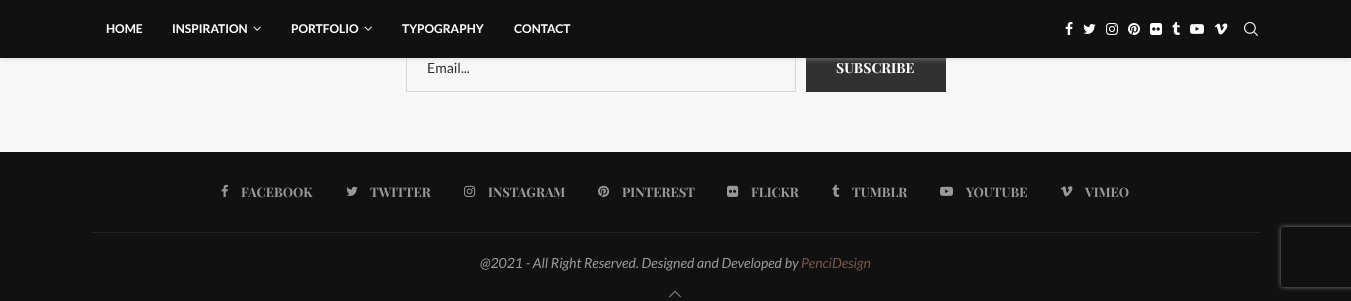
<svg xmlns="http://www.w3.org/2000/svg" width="1351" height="301">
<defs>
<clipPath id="clip1"><path d="M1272 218h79v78h-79zm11 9h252c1 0 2 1 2 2v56c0 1-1 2-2 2h-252c-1 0-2-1-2-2v-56c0-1 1-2 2-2z" clip-rule="evenodd"/></clipPath>
</defs>
<rect width="100%" height="100%" fill="#f7f7f7"/>
<rect x="406.5" y="44.5" width="389" height="47" fill="none" stroke="#d7d7da"/>
<rect x="806" y="58" width="140" height="34" fill="#313131"/>
<rect y="1" width="1351" height="58" fill="#bebebe75" filter="blur(2.5px)"/>
<rect width="1351" height="58" fill="#111"/>
<text x="106" y="33" style="font-family:Lato;font-size:12px;font-weight:bold;fill:#fff">HOME</text>
<text x="172" y="33" style="font-family:Lato;font-size:12px;font-weight:bold;fill:#fff">INSPIRATION</text>
<image x="253" y="26" width="8" height="5" href="media/1.png"/>
<text x="291" y="33" style="font-family:Lato;font-size:12px;font-weight:bold;fill:#fff">PORTFOLIO</text>
<image x="364" y="26" width="8" height="5" href="media/1.png"/>
<text x="402" y="33" style="font-family:Lato;font-size:12px;font-weight:bold;fill:#fff">TYPOGRAPHY</text>
<text x="514" y="33" style="font-family:Lato;font-size:12px;font-weight:bold;fill:#fff">CONTACT</text>
<image x="1065" y="22" width="8" height="13" href="media/2.png"/>
<image x="1083" y="24" width="13" height="10" href="media/3.png"/>
<image x="1106" y="23" width="12" height="12" href="media/4.png"/>
<image x="1128" y="23" width="12" height="12" href="media/5.png"/>
<image x="1150" y="23" width="12" height="12" href="media/6.png"/>
<image x="1172" y="22" width="8" height="13" href="media/7.png"/>
<image x="1190" y="24" width="14" height="10" href="media/8.png"/>
<image x="1214" y="23" width="14" height="12" href="media/9.png"/>
<image x="1244" y="22" width="14" height="14" href="media/10.png"/>
<text x="427" y="73" style="font-family:Lato;font-size:14px;fill:#313131">Email...</text>
<text x="836" y="73" style="font-family:Playfair Display;font-size:14px;font-weight:bold;fill:#fff">SUBSCRIBE</text>
<rect y="152" width="1351" height="149" fill="#111"/>
<rect x="91" y="232" width="1170" height="1" fill="#212121"/>
<image x="221" y="184" width="7" height="13" href="media/11.png"/>
<text x="241" y="197" style="font-family:Playfair Display;font-size:13px;font-weight:bold;fill:#999">FACEBOOK</text>
<image x="346" y="186" width="12" height="10" href="media/12.png"/>
<text x="370" y="197" style="font-family:Playfair Display;font-size:13px;font-weight:bold;fill:#999">TWITTER</text>
<image x="464" y="185" width="12" height="12" href="media/13.png"/>
<text x="488" y="197" style="font-family:Playfair Display;font-size:13px;font-weight:bold;fill:#999">INSTAGRAM</text>
<image x="598" y="185" width="12" height="12" href="media/14.png"/>
<text x="622" y="197" style="font-family:Playfair Display;font-size:13px;font-weight:bold;fill:#999">PINTEREST</text>
<image x="727" y="185" width="12" height="12" href="media/15.png"/>
<text x="751" y="197" style="font-family:Playfair Display;font-size:13px;font-weight:bold;fill:#999">FLICKR</text>
<image x="832" y="184" width="8" height="13" href="media/16.png"/>
<text x="852" y="197" style="font-family:Playfair Display;font-size:13px;font-weight:bold;fill:#999">TUMBLR</text>
<image x="940" y="186" width="13" height="10" href="media/17.png"/>
<text x="966" y="197" style="font-family:Playfair Display;font-size:13px;font-weight:bold;fill:#999">YOUTUBE</text>
<image x="1060" y="186" width="13" height="11" href="media/18.png"/>
<text x="1085" y="197" style="font-family:Playfair Display;font-size:13px;font-weight:bold;fill:#999">VIMEO</text>
<text x="480" y="268" style="font-family:Lato;font-size:14px;font-style:italic;fill:#999">@2021 - All Right Reserved. Designed and Developed by</text>
<text x="801" y="268" style="font-family:Lato;font-size:14px;font-style:italic;fill:#795548">PenciDesign</text>
<image x="669" y="290" width="12" height="8" href="media/19.png"/>
<g clip-path="url(#clip1)">
<rect x="1281" y="227" width="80" height="60" rx="2" fill="#808080" filter="blur(2.5px)"/>
</g>
</svg>
